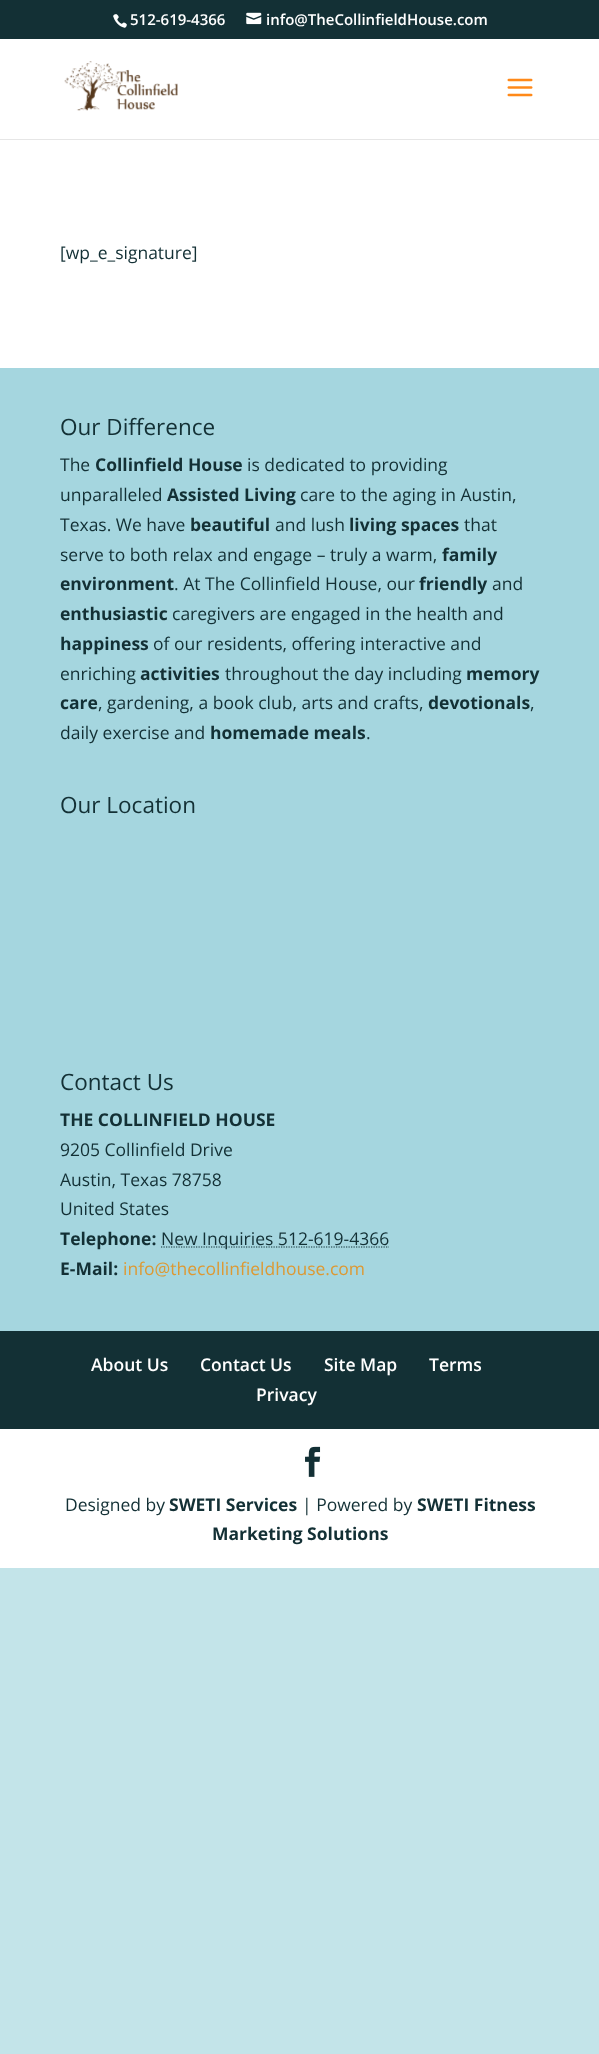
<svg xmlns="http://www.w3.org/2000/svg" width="599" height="2054">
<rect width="100%" height="100%" fill="#c3e4e9"/>
<rect width="599" height="39" fill="#133035"/>
<image x="113" y="14" width="14" height="14" href="media/1.png"/>
<text x="130" y="25" style="font-family:Open Sans;font-size:15px;font-weight:600;fill:#fff">512-619-4366</text>
<image x="246" y="12" width="16" height="13" href="media/2.png"/>
<text x="266" y="25" style="font-family:Open Sans;font-size:15px;font-weight:600;fill:#fff">info@TheCollinfieldHouse.com</text>
<rect y="139" width="599" height="1" fill="#e6e6e6"/>
<rect y="39" width="599" height="100" fill="#fff"/>
<image x="64" y="61" width="114" height="50" href="media/3.png"/>
<image x="507" y="78" width="26" height="19" href="media/4.png"/>
<rect y="140" width="599" height="228" fill="#fff"/>
<text x="60" y="259" style="font-family:Open Sans;font-size:17.5px;fill:#133035">[wp_e_signature]</text>
<rect y="368" width="599" height="963" fill="#a5d6df"/>
<text x="60" y="435" style="font-family:Open Sans;font-size:22.5px;fill:#133035">Our Difference</text>
<text x="60" y="471" style="font-family:Open Sans;font-size:17.5px;fill:#133035">The</text>
<text x="95" y="471" style="font-family:Open Sans;font-size:17.5px;font-weight:bold;fill:#133035">Collinfield House</text>
<text x="247" y="471" style="font-family:Open Sans;font-size:17.5px;fill:#133035">is dedicated to providing</text>
<text x="60" y="501" style="font-family:Open Sans;font-size:17.5px;fill:#133035">unparalleled</text>
<text x="167" y="501" style="font-family:Open Sans;font-size:17.5px;font-weight:bold;fill:#133035">Assisted Living</text>
<text x="300" y="501" style="font-family:Open Sans;font-size:17.5px;fill:#133035">care to the aging in Austin,</text>
<text x="60" y="531" style="font-family:Open Sans;font-size:17.5px;fill:#133035">Texas. We have</text>
<text x="190" y="531" style="font-family:Open Sans;font-size:17.5px;font-weight:bold;fill:#133035">beautiful</text>
<text x="275" y="531" style="font-family:Open Sans;font-size:17.5px;fill:#133035">and lush</text>
<text x="349" y="531" style="font-family:Open Sans;font-size:17.5px;font-weight:bold;fill:#133035">living spaces</text>
<text x="464" y="531" style="font-family:Open Sans;font-size:17.5px;fill:#133035">that</text>
<text x="60" y="561" style="font-family:Open Sans;font-size:17.5px;fill:#133035">serve to both relax and engage – truly a warm,</text>
<text x="442" y="561" style="font-family:Open Sans;font-size:17.5px;font-weight:bold;fill:#133035">family</text>
<text x="60" y="590" style="font-family:Open Sans;font-size:17.5px;font-weight:bold;fill:#133035">environment</text>
<text x="174" y="590" style="font-family:Open Sans;font-size:17.5px;fill:#133035">. At The Collinfield House, our</text>
<text x="419" y="590" style="font-family:Open Sans;font-size:17.5px;font-weight:bold;fill:#133035">friendly</text>
<text x="492" y="590" style="font-family:Open Sans;font-size:17.5px;fill:#133035">and</text>
<text x="60" y="620" style="font-family:Open Sans;font-size:17.5px;font-weight:bold;fill:#133035">enthusiastic</text>
<text x="172" y="620" style="font-family:Open Sans;font-size:17.5px;fill:#133035">caregivers are engaged in the health and</text>
<text x="60" y="650" style="font-family:Open Sans;font-size:17.5px;font-weight:bold;fill:#133035">happiness</text>
<text x="153" y="650" style="font-family:Open Sans;font-size:17.5px;fill:#133035">of our residents, offering interactive and</text>
<text x="60" y="680" style="font-family:Open Sans;font-size:17.5px;fill:#133035">enriching</text>
<text x="140" y="680" style="font-family:Open Sans;font-size:17.5px;font-weight:bold;fill:#133035">activities</text>
<text x="225" y="680" style="font-family:Open Sans;font-size:17.5px;fill:#133035">throughout the day including</text>
<text x="466" y="680" style="font-family:Open Sans;font-size:17.5px;font-weight:bold;fill:#133035">memory</text>
<text x="60" y="709" style="font-family:Open Sans;font-size:17.5px;font-weight:bold;fill:#133035">care</text>
<text x="98" y="709" style="font-family:Open Sans;font-size:17.5px;fill:#133035">, gardening, a book club, arts and crafts,</text>
<text x="428" y="709" style="font-family:Open Sans;font-size:17.5px;font-weight:bold;fill:#133035">devotionals</text>
<text x="530" y="709" style="font-family:Open Sans;font-size:17.5px;fill:#133035">,</text>
<text x="60" y="739" style="font-family:Open Sans;font-size:17.5px;fill:#133035">daily exercise and</text>
<text x="210" y="739" style="font-family:Open Sans;font-size:17.5px;font-weight:bold;fill:#133035">homemade meals</text>
<text x="366" y="739" style="font-family:Open Sans;font-size:17.5px;fill:#133035">.</text>
<text x="60" y="813" style="font-family:Open Sans;font-size:22.5px;fill:#133035">Our Location</text>
<text x="60" y="1090" style="font-family:Open Sans;font-size:22.5px;fill:#133035">Contact Us</text>
<text x="60" y="1126" style="font-family:Open Sans;font-size:17.5px;font-weight:bold;fill:#133035">THE COLLINFIELD HOUSE</text>
<text x="60" y="1156" style="font-family:Open Sans;font-size:17.5px;fill:#133035">9205 Collinfield Drive</text>
<text x="60" y="1186" style="font-family:Open Sans;font-size:17.5px;fill:#133035">Austin, Texas 78758</text>
<text x="60" y="1215" style="font-family:Open Sans;font-size:17.5px;fill:#133035">United States</text>
<text x="60" y="1245" style="font-family:Open Sans;font-size:17.5px;font-weight:bold;fill:#133035">Telephone:</text>
<path d="M161 1247h228" fill="none" stroke="#133035" stroke-width="1.2" stroke-dasharray="1.25 1.25"/>
<text x="161" y="1245" style="font-family:Open Sans;font-size:17.5px;fill:#133035">New Inquiries 512-619-4366</text>
<text x="60" y="1275" style="font-family:Open Sans;font-size:17.5px;font-weight:bold;fill:#133035">E-Mail:</text>
<text x="123" y="1275" style="font-family:Open Sans;font-size:17.5px;fill:#d93">info@thecollinfieldhouse.com</text>
<rect y="1331" width="599" height="98" fill="#133035"/>
<text x="91" y="1371" style="font-family:Open Sans;font-size:17.5px;font-weight:600;fill:#fff">About Us</text>
<text x="200" y="1371" style="font-family:Open Sans;font-size:17.5px;font-weight:600;fill:#fff">Contact Us</text>
<text x="324" y="1371" style="font-family:Open Sans;font-size:17.5px;font-weight:600;fill:#fff">Site Map</text>
<text x="429" y="1371" style="font-family:Open Sans;font-size:17.5px;font-weight:600;fill:#fff">Terms</text>
<text x="256" y="1401" style="font-family:Open Sans;font-size:17.5px;font-weight:600;fill:#fff">Privacy</text>
<rect y="1429" width="599" height="139" fill="#fff"/>
<image x="305" y="1446" width="16" height="31" href="media/5.png"/>
<text x="65" y="1511" style="font-family:Open Sans;font-size:17.5px;fill:#133035">Designed by</text>
<text x="169" y="1511" style="font-family:Open Sans;font-size:17.5px;font-weight:bold;fill:#133035">SWETI Services</text>
<text x="302" y="1511" style="font-family:Open Sans;font-size:17.5px;fill:#133035">| Powered by</text>
<text x="417" y="1511" style="font-family:Open Sans;font-size:17.5px;font-weight:bold;fill:#133035">SWETI Fitness</text>
<text x="212" y="1540" style="font-family:Open Sans;font-size:17.5px;font-weight:bold;fill:#133035">Marketing Solutions</text>
</svg>
